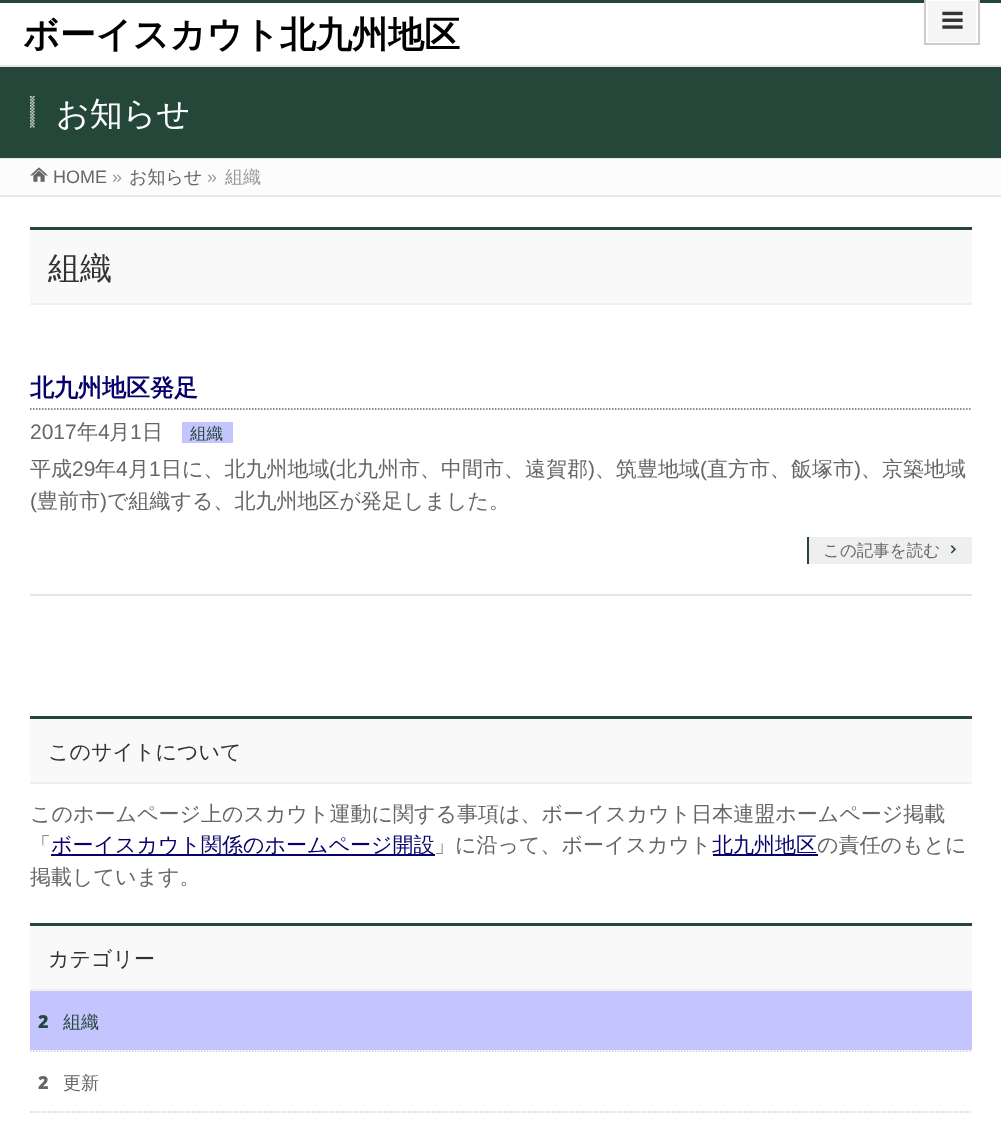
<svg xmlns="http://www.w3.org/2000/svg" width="1001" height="1139">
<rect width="100%" height="100%" fill="#fff"/>
<rect width="1001" height="3" fill="#254739"/>
<text x="23" y="47" style="font-family:WenQuanYi Zen Hei;font-size:36px;font-weight:bold;fill:#000">ボーイスカウト北九州地区</text>
<rect x="927" y="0" width="50" height="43" fill="#f5f5f5" stroke="#fefefe" stroke-width="2"/>
<rect x="925" y="-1" width="54" height="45" fill="none" stroke="#ccc" stroke-width="2"/>
<image x="942" y="11" width="21" height="18" href="media/1.png"/>
<rect y="67" width="1001" height="91" fill="#254739"/>
<rect y="65" width="1001" height="2" fill="#e9e9e9"/>
<rect y="158" width="1001" height="1" fill="#e9e9e9"/>
<image x="30" y="96" width="5" height="32" href="media/2.png"/>
<text x="56" y="125" style="font-family:WenQuanYi Zen Hei;font-size:33px;font-weight:500;fill:#fff">お知らせ</text>
<rect y="159" width="1001" height="36" fill="#fcfcfc"/>
<image x="30" y="167" width="18" height="15" href="media/3.png"/>
<text x="53" y="183" style="font-family:Liberation Sans;font-size:18px;fill:#666">HOME</text>
<text x="112" y="183" style="font-family:Liberation Sans;font-size:18px;fill:#999">»</text>
<text x="129" y="183" style="font-family:WenQuanYi Zen Hei;font-size:18px;font-weight:500;fill:#666">お知らせ</text>
<text x="207" y="183" style="font-family:Liberation Sans;font-size:18px;fill:#999">»</text>
<text x="225" y="183" style="font-family:WenQuanYi Zen Hei;font-size:18px;font-weight:500;fill:#999">組織</text>
<rect y="195" width="1001" height="2" fill="#e9e9e9"/>
<rect x="30" y="230" width="942" height="73" fill="#f9f9f9"/>
<rect x="30" y="227" width="942" height="3" fill="#254739"/>
<rect x="30" y="303" width="942" height="2" fill="#efefef"/>
<text x="48" y="279" style="font-family:WenQuanYi Zen Hei;font-size:32px;font-weight:500;fill:#333">組織</text>
<rect x="30" y="594" width="942" height="2" fill="#e5e5e5"/>
<path d="M30 409h942" fill="none" stroke="#666" stroke-width="1.5" stroke-dasharray="1.5 1.5"/>
<text x="30" y="396" style="font-family:WenQuanYi Zen Hei;font-size:24px;font-weight:bold;fill:#08006b">北九州地区発足</text>
<text x="30" y="439" style="font-family:Liberation Sans;font-size:21px;fill:#666">2017</text>
<text x="77" y="439" style="font-family:WenQuanYi Zen Hei;font-size:21px;font-weight:500;fill:#666">年</text>
<text x="98" y="439" style="font-family:Liberation Sans;font-size:21px;fill:#666">4</text>
<text x="109" y="439" style="font-family:WenQuanYi Zen Hei;font-size:21px;font-weight:500;fill:#666">月</text>
<text x="130" y="439" style="font-family:Liberation Sans;font-size:21px;fill:#666">1</text>
<text x="142" y="439" style="font-family:WenQuanYi Zen Hei;font-size:21px;font-weight:500;fill:#666">日</text>
<rect x="182" y="422" width="51" height="21" fill="#c4c4ff"/>
<text x="190" y="439" style="font-family:WenQuanYi Zen Hei;font-size:16.5px;font-weight:500;fill:#254739">組織</text>
<text x="30" y="476" style="font-family:WenQuanYi Zen Hei;font-size:21px;font-weight:500;fill:#666">平成</text>
<text x="72" y="476" style="font-family:Liberation Sans;font-size:21px;fill:#666">29</text>
<text x="95" y="476" style="font-family:WenQuanYi Zen Hei;font-size:21px;font-weight:500;fill:#666">年</text>
<text x="116" y="476" style="font-family:Liberation Sans;font-size:21px;fill:#666">4</text>
<text x="128" y="476" style="font-family:WenQuanYi Zen Hei;font-size:21px;font-weight:500;fill:#666">月</text>
<text x="149" y="476" style="font-family:Liberation Sans;font-size:21px;fill:#666">1</text>
<text x="161" y="476" style="font-family:WenQuanYi Zen Hei;font-size:21px;font-weight:500;fill:#666">日に、北九州地域</text>
<text x="329" y="476" style="font-family:Liberation Sans;font-size:21px;fill:#666">(</text>
<text x="336" y="476" style="font-family:WenQuanYi Zen Hei;font-size:21px;font-weight:500;fill:#666">北九州市、中間市、遠賀郡</text>
<text x="588" y="476" style="font-family:Liberation Sans;font-size:21px;fill:#666">)</text>
<text x="595" y="476" style="font-family:WenQuanYi Zen Hei;font-size:21px;font-weight:500;fill:#666">、筑豊地域</text>
<text x="700" y="476" style="font-family:Liberation Sans;font-size:21px;fill:#666">(</text>
<text x="707" y="476" style="font-family:WenQuanYi Zen Hei;font-size:21px;font-weight:500;fill:#666">直方市、飯塚市</text>
<text x="854" y="476" style="font-family:Liberation Sans;font-size:21px;fill:#666">)</text>
<text x="861" y="476" style="font-family:WenQuanYi Zen Hei;font-size:21px;font-weight:500;fill:#666">、京築地域</text>
<text x="30" y="508" style="font-family:Liberation Sans;font-size:21px;fill:#666">(</text>
<text x="37" y="508" style="font-family:WenQuanYi Zen Hei;font-size:21px;font-weight:500;fill:#666">豊前市</text>
<text x="100" y="508" style="font-family:Liberation Sans;font-size:21px;fill:#666">)</text>
<text x="107" y="508" style="font-family:WenQuanYi Zen Hei;font-size:21px;font-weight:500;fill:#666">で組織する、北九州地区が発足しました。</text>
<rect x="809" y="537" width="163" height="27" fill="#efefef"/>
<rect x="807" y="537" width="2" height="27" fill="#254739"/>
<text x="823" y="556" style="font-family:WenQuanYi Zen Hei;font-size:16.5px;font-weight:500;fill:#666">この記事を読む</text>
<image x="950" y="545" width="6" height="9" href="media/4.png"/>
<rect x="30" y="719" width="942" height="63" fill="#f9f9f9"/>
<rect x="30" y="716" width="942" height="3" fill="#254739"/>
<rect x="30" y="782" width="942" height="2" fill="#efefef"/>
<text x="48" y="759" style="font-family:WenQuanYi Zen Hei;font-size:21px;font-weight:500;fill:#333">このサイトについて</text>
<text x="30" y="821" style="font-family:WenQuanYi Zen Hei;font-size:21px;font-weight:500;fill:#666">このホームページ上のスカウト運動に関する事項は、ボーイスカウト日本連盟ホームページ掲載</text>
<text x="30" y="852" style="font-family:WenQuanYi Zen Hei;font-size:21px;font-weight:500;fill:#666">「</text>
<rect x="51" y="854" width="384" height="2" fill="#08006b"/>
<text x="51" y="852" style="font-family:WenQuanYi Zen Hei;font-size:21px;font-weight:500;fill:#08006b">ボーイスカウト関係のホームページ開設</text>
<text x="434" y="852" style="font-family:WenQuanYi Zen Hei;font-size:21px;font-weight:500;fill:#666">」に沿って、ボーイスカウト</text>
<rect x="713" y="854" width="105" height="2" fill="#08006b"/>
<text x="712" y="852" style="font-family:WenQuanYi Zen Hei;font-size:21px;font-weight:500;fill:#08006b">北九州地区</text>
<text x="817" y="852" style="font-family:WenQuanYi Zen Hei;font-size:21px;font-weight:500;fill:#666">の責任のもとに</text>
<text x="30" y="884" style="font-family:WenQuanYi Zen Hei;font-size:21px;font-weight:500;fill:#666">掲載しています。</text>
<rect x="30" y="926" width="942" height="63" fill="#f9f9f9"/>
<rect x="30" y="923" width="942" height="3" fill="#254739"/>
<rect x="30" y="989" width="942" height="2" fill="#efefef"/>
<text x="48" y="966" style="font-family:WenQuanYi Zen Hei;font-size:21px;font-weight:500;fill:#333">カテゴリー</text>
<path d="M30 1051h942" fill="none" stroke="#ccc" stroke-width="1.5" stroke-dasharray="1.5 1.5"/>
<rect x="30" y="991" width="942" height="59" fill="#c4c4ff"/>
<text x="38" y="1028" style="font-family:Noto Sans;font-size:18px;font-weight:900;fill:#254739">2</text>
<text x="63" y="1028" style="font-family:WenQuanYi Zen Hei;font-size:18px;font-weight:500;fill:#254739">組織</text>
<path d="M30 1112h942" fill="none" stroke="#ccc" stroke-width="1.5" stroke-dasharray="1.5 1.5"/>
<text x="38" y="1089" style="font-family:Noto Sans;font-size:18px;font-weight:900;fill:#666">2</text>
<text x="63" y="1089" style="font-family:WenQuanYi Zen Hei;font-size:18px;font-weight:500;fill:#666">更新</text>
</svg>
